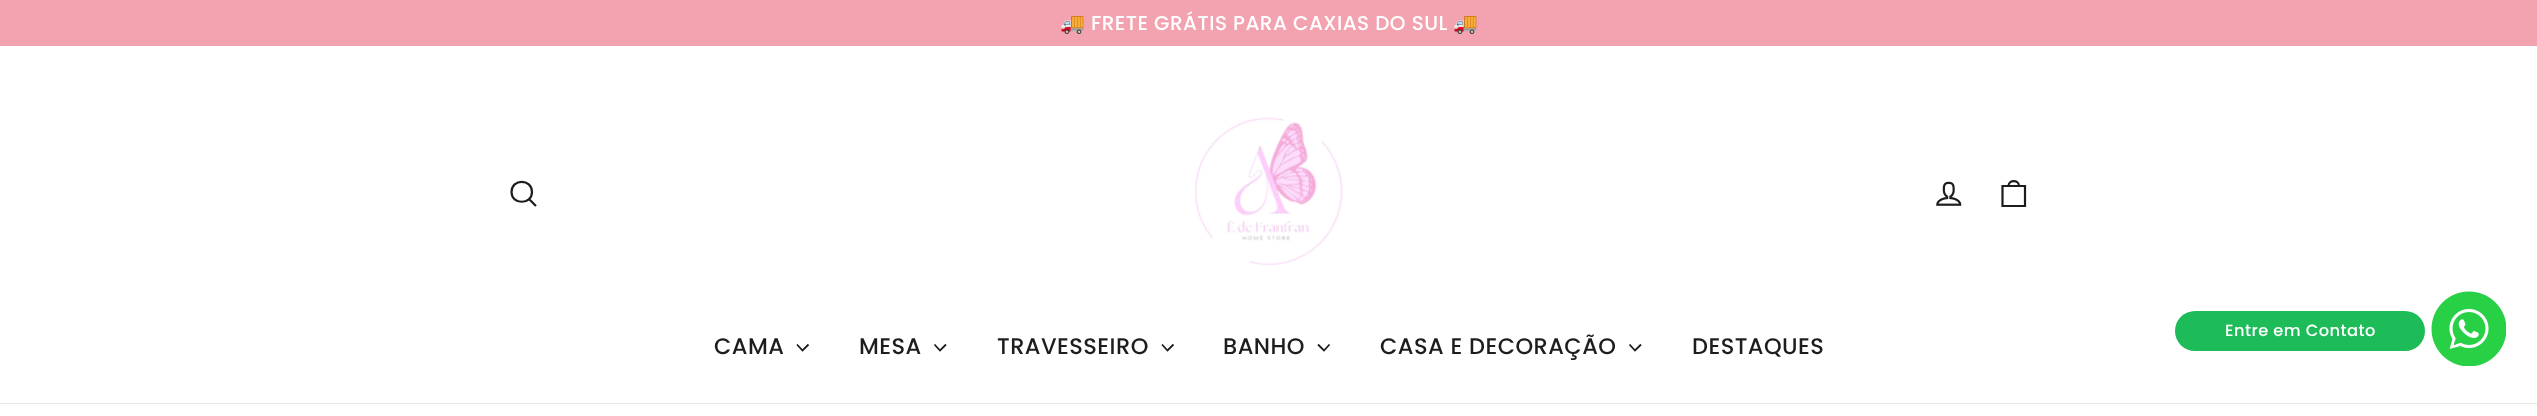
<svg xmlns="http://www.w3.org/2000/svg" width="2537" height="416">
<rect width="100%" height="100%" fill="#fff"/>
<rect width="2537" height="46" fill="#f3a2b0"/>
<text x="1060" y="30" style="font-family:Noto Color Emoji;font-size:20px;letter-spacing:0.45px;fill:#fff">🚚</text>
<text x="1091" y="30" style="font-family:Poppins;font-size:20px;font-weight:500;letter-spacing:0.45px;fill:#fff">FRETE GRÁTIS PARA CAXIAS DO SUL</text>
<text x="1453" y="30" style="font-family:Noto Color Emoji;font-size:20px;letter-spacing:0.45px;fill:#fff">🚚</text>
<rect y="403" width="2537" height="1" fill="#e8e8e1"/>
<path d="M532 192c0 13-20.5 13-20.5 0c0-13.5 20.5-13.5 20.5 0zm4 14l-7-7" fill="none" stroke="#1c1d1d" stroke-width="2.2"/>
<image x="1195" y="117" width="148" height="149" href="media/1.png"/>
<image x="1936" y="181" width="26" height="25" href="media/2.png"/>
<path d="M2002.5 186h22.5v20h-22.5zm6 0c0-6.5 10.5-6.5 10.5 0" fill="none" stroke="#1c1d1d" stroke-width="2.2"/>
<text x="714" y="354" style="font-family:Poppins;font-size:22.5px;font-weight:500;letter-spacing:0.45px;fill:#1c1d1d">CAMA</text>
<path d="M797 344.5l5.5 6l6-6" fill="none" stroke="#1c1d1d" stroke-width="1.8"/>
<text x="859" y="354" style="font-family:Poppins;font-size:22.5px;font-weight:500;letter-spacing:0.45px;fill:#1c1d1d">MESA</text>
<path d="M934.5 344.5l5.5 6l6-6" fill="none" stroke="#1c1d1d" stroke-width="1.8"/>
<text x="997" y="354" style="font-family:Poppins;font-size:22.5px;font-weight:500;letter-spacing:0.45px;fill:#1c1d1d">TRAVESSEIRO</text>
<path d="M1162 344.5l5.5 6l6-6" fill="none" stroke="#1c1d1d" stroke-width="1.8"/>
<text x="1223" y="354" style="font-family:Poppins;font-size:22.5px;font-weight:500;letter-spacing:0.45px;fill:#1c1d1d">BANHO</text>
<path d="M1318 344.5l6 6l5.5-6" fill="none" stroke="#1c1d1d" stroke-width="1.8"/>
<text x="1380" y="354" style="font-family:Poppins;font-size:22.5px;font-weight:500;letter-spacing:0.45px;fill:#1c1d1d">CASA E DECORAÇÃO</text>
<path d="M1629.5 344.5l5.5 6l6-6" fill="none" stroke="#1c1d1d" stroke-width="1.8"/>
<text x="1692" y="354" style="font-family:Poppins;font-size:22.5px;font-weight:500;letter-spacing:0.45px;fill:#1c1d1d">DESTAQUES</text>
<rect x="2175" y="311" width="250" height="40" rx="20" fill="#1ebc59"/>
<text x="2225" y="336" style="font-family:Poppins;font-size:16.25px;font-weight:500;letter-spacing:0.45px;fill:#fff">Entre em Contato</text>
<image x="2431" y="291" width="75" height="75" href="media/3.png"/>
</svg>
